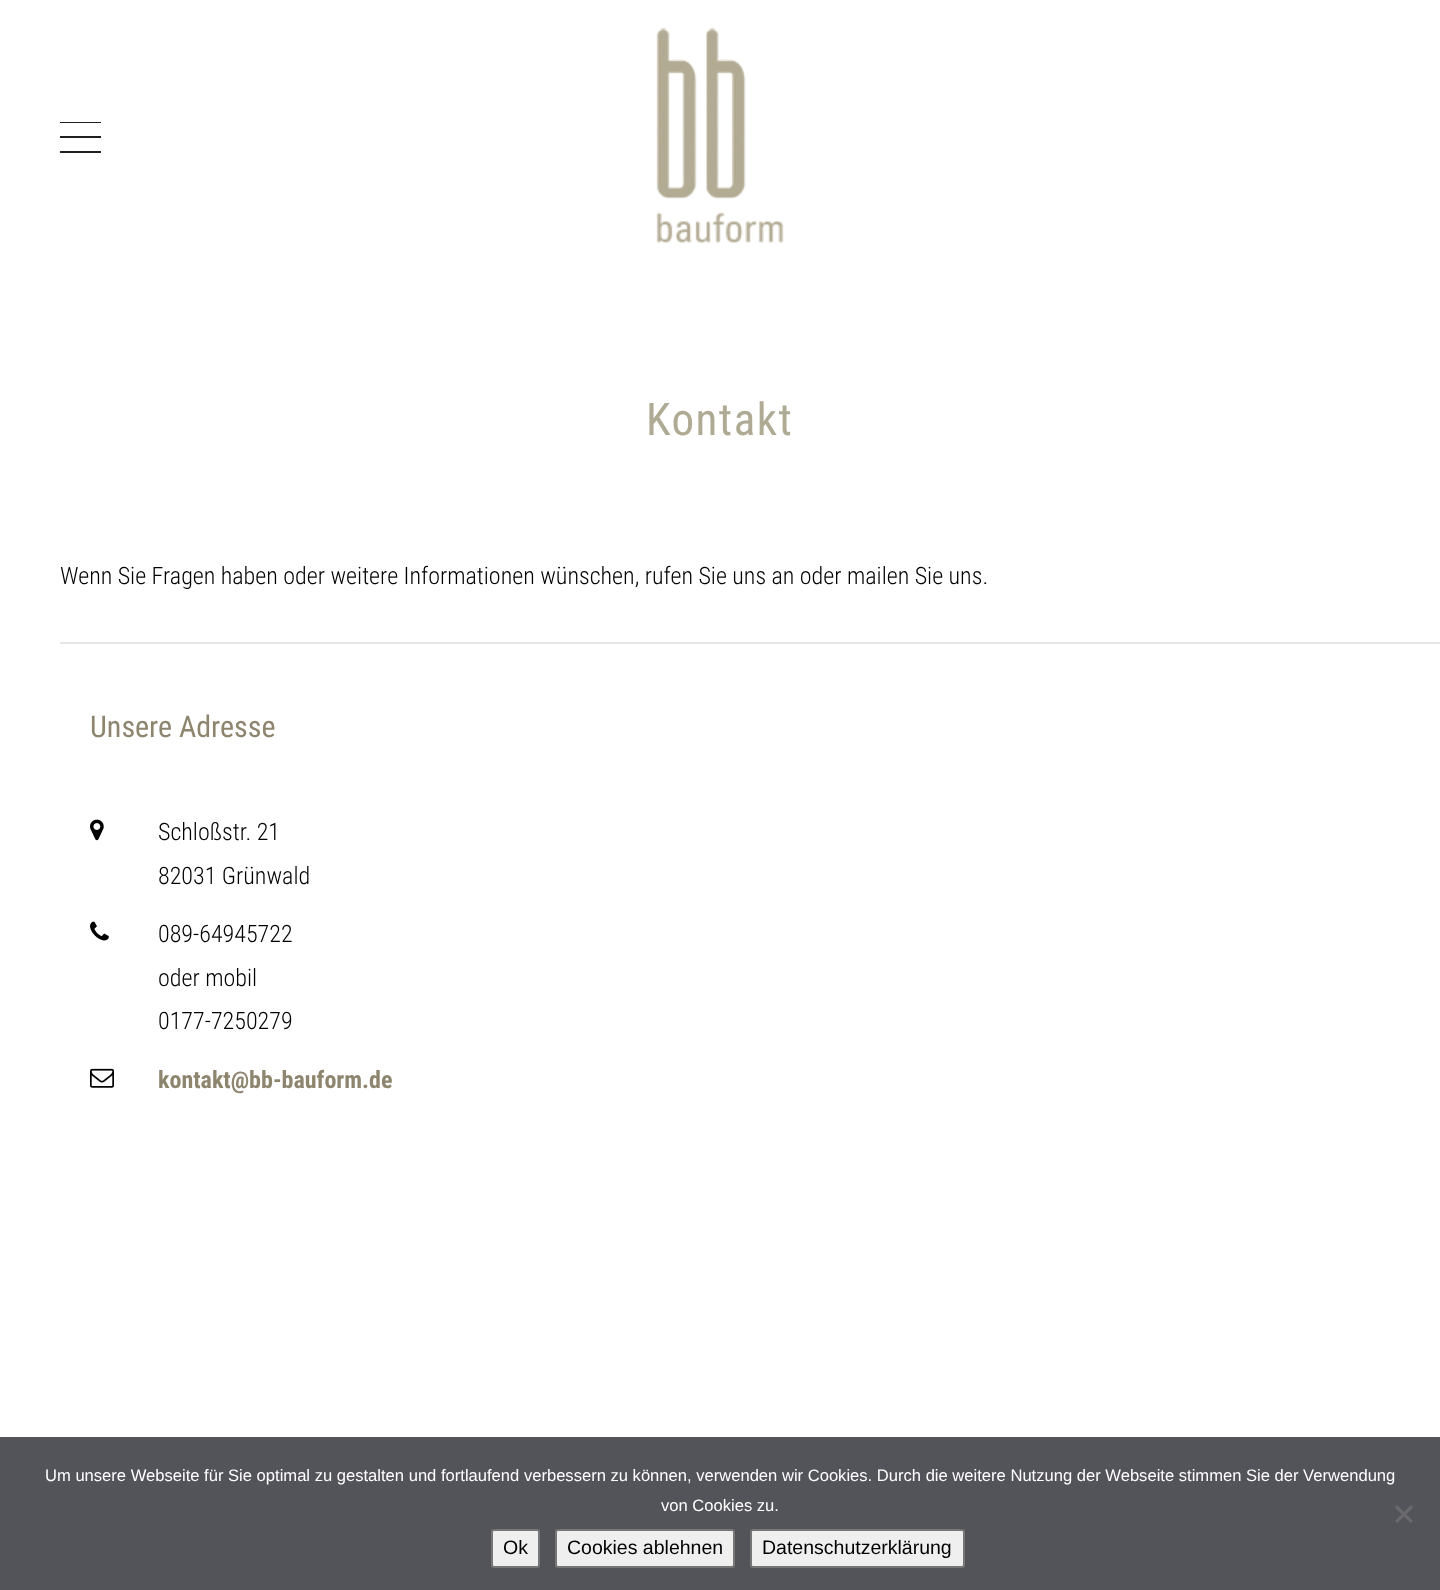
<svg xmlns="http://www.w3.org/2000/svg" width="1440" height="1590">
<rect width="100%" height="100%" fill="#fff"/>
<rect x="60" y="151" width="41" height="2" fill="#202020"/>
<rect x="60" y="122" width="41" height="1" fill="#202020"/>
<rect x="60" y="136" width="41" height="2" fill="#202020"/>
<image x="656" y="27" width="128" height="216" href="media/1.png"/>
<text x="646" y="435" style="font-family:Roboto Condensed;font-size:45px;letter-spacing:1.5px;fill:#afaa94">Kontakt</text>
<text x="60" y="584" style="font-family:Roboto Condensed;font-size:24px;font-weight:300;fill:#000">Wenn Sie Fragen haben oder weitere Informationen wünschen, rufen Sie uns an oder mailen Sie uns.</text>
<rect x="60" y="642" width="1380" height="2" fill="#e6e6e6"/>
<text x="90" y="737" style="font-family:Roboto Condensed;font-size:30px;fill:#8d856e">Unsere Adresse</text>
<image x="90" y="819" width="14" height="22" href="media/2.png"/>
<text x="158" y="840" style="font-family:Roboto Condensed;font-size:24px;font-weight:300;fill:#000">Schloßstr. 21</text>
<text x="158" y="884" style="font-family:Roboto Condensed;font-size:24px;font-weight:300;fill:#000">82031 Grünwald</text>
<image x="90" y="921" width="19" height="20" href="media/3.png"/>
<text x="158" y="942" style="font-family:Roboto Condensed;font-size:24px;font-weight:300;fill:#000">089-64945722</text>
<text x="158" y="986" style="font-family:Roboto Condensed;font-size:24px;font-weight:300;fill:#000">oder mobil</text>
<text x="158" y="1029" style="font-family:Roboto Condensed;font-size:24px;font-weight:300;fill:#000">0177-7250279</text>
<image x="90" y="1068" width="24" height="20" href="media/4.png"/>
<text x="158" y="1088" style="font-family:Roboto Condensed;font-size:24px;font-weight:bold;fill:#8d856e">kontakt@bb-bauform.de</text>
<rect y="1437" width="1440" height="153" fill="#53535a"/>
<text x="45" y="1481" style="font-family:Liberation Sans;font-size:16.58px;fill:#fff">Um unsere Webseite für Sie optimal zu gestalten und fortlaufend verbessern zu können, verwenden wir Cookies. Durch die weitere Nutzung der Webseite stimmen Sie der Verwendung</text>
<text x="661" y="1511" style="font-family:Liberation Sans;font-size:16.58px;fill:#fff">von Cookies zu.</text>
<path d="M1411 1505l2 2.5l-16 16l-2-2.5z" fill="#6a6a6d"/>
<path d="M1395 1507.5l2-2.5l16 16l-2 2.5z" fill="#6a6a6d"/>
<rect x="492" y="1530" width="47" height="37" rx="2" fill="#efefef" stroke="#767676" stroke-width="2"/>
<text x="503" y="1554" style="font-family:Liberation Sans;font-size:19.5px;fill:#000">Ok</text>
<rect x="556" y="1530" width="178" height="37" rx="2" fill="#efefef" stroke="#767676" stroke-width="2"/>
<text x="567" y="1554" style="font-family:Liberation Sans;font-size:19.5px;fill:#000">Cookies ablehnen</text>
<rect x="751" y="1530" width="213" height="37" rx="2" fill="#efefef" stroke="#767676" stroke-width="2"/>
<text x="762" y="1554" style="font-family:Liberation Sans;font-size:19.5px;fill:#000">Datenschutzerklärung</text>
</svg>
